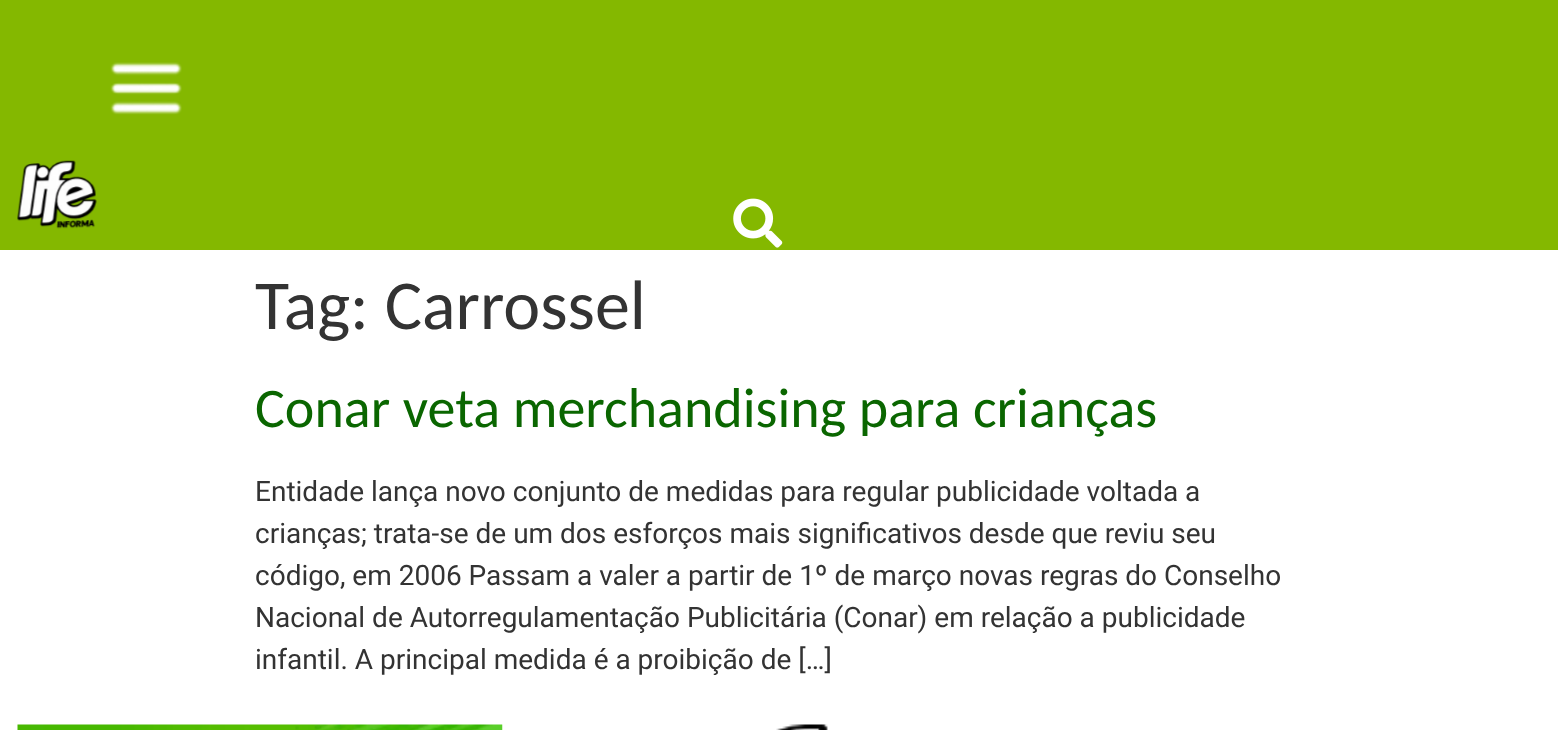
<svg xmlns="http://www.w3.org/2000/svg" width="1558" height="730">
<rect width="100%" height="100%" fill="#fff"/>
<rect width="1558" height="250" fill="#84b800"/>
<image x="110" y="62" width="72" height="53" href="media/1.png"/>
<image x="17" y="160" width="80" height="69" href="media/2.png"/>
<image x="733" y="198" width="50" height="50" href="media/3.png"/>
<text x="255" y="329" style="font-family:Carlito;font-size:70px;fill:#333">Tag: Carrossel</text>
<text x="255" y="427" style="font-family:Carlito;font-size:56px;fill:#0a6600">Conar veta merchandising para crianças</text>
<text x="255" y="501" style="font-family:Roboto;font-size:28px;fill:#333">Entidade lança novo conjunto de medidas para regular publicidade voltada a</text>
<text x="255" y="543" style="font-family:Roboto;font-size:28px;fill:#333">crianças; trata-se de um dos esforços mais significativos desde que reviu seu</text>
<text x="255" y="585" style="font-family:Roboto;font-size:28px;fill:#333">código, em 2006 Passam a valer a partir de 1º de março novas regras do Conselho</text>
<text x="255" y="627" style="font-family:Roboto;font-size:28px;fill:#333">Nacional de Autorregulamentação Publicitária (Conar) em relação a publicidade</text>
<text x="255" y="669" style="font-family:Roboto;font-size:28px;fill:#333">infantil. A principal medida é a proibição de […]</text>
<image x="17" y="724" width="486" height="6" href="media/4.png"/>
<image x="776" y="724" width="52" height="6" href="media/5.png"/>
</svg>
